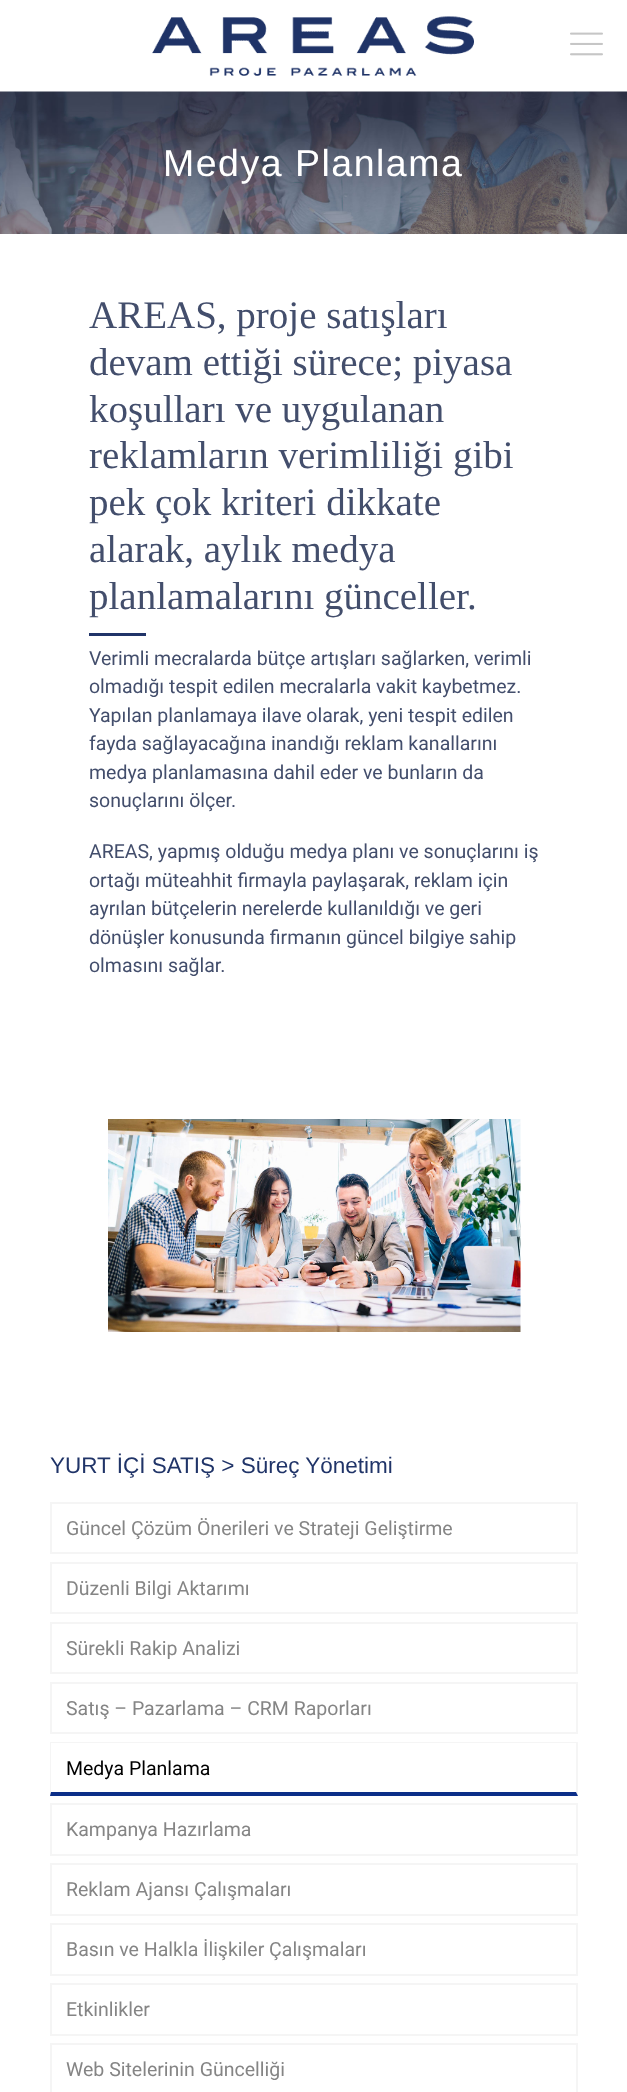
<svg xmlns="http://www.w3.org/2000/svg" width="627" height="2092">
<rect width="100%" height="100%" fill="#fff"/>
<image x="152" y="16" width="322" height="60" href="media/1.png"/>
<image x="570" y="32" width="33" height="24" href="media/2.png"/>
<image x="0" y="91" width="627" height="143" href="media/3.png"/>
<text x="163" y="176" style="font-family:Liberation Sans;font-size:37.5px;letter-spacing:1.5px;fill:#fff">Medya Planlama</text>
<text x="89" y="328" style="font-family:Liberation Serif;font-size:39px;fill:#434e6c">AREAS, proje satışları</text>
<text x="89" y="375" style="font-family:Liberation Serif;font-size:39px;fill:#434e6c">devam ettiği sürece; piyasa</text>
<text x="89" y="422" style="font-family:Liberation Serif;font-size:39px;fill:#434e6c">koşulları ve uygulanan</text>
<text x="89" y="468" style="font-family:Liberation Serif;font-size:39px;fill:#434e6c">reklamların verimliliği gibi</text>
<text x="89" y="515" style="font-family:Liberation Serif;font-size:39px;fill:#434e6c">pek çok kriteri dikkate</text>
<text x="89" y="562" style="font-family:Liberation Serif;font-size:39px;fill:#434e6c">alarak, aylık medya</text>
<text x="89" y="609" style="font-family:Liberation Serif;font-size:39px;fill:#434e6c">planlamalarını günceller.</text>
<rect x="89" y="633" width="57" height="3" fill="#203468"/>
<text x="89" y="665" style="font-family:Roboto;font-size:19.5px;fill:#434e6c">Verimli mecralarda bütçe artışları sağlarken, verimli</text>
<text x="89" y="693" style="font-family:Roboto;font-size:19.5px;fill:#434e6c">olmadığı tespit edilen mecralarla vakit kaybetmez.</text>
<text x="89" y="722" style="font-family:Roboto;font-size:19.5px;fill:#434e6c">Yapılan planlamaya ilave olarak, yeni tespit edilen</text>
<text x="89" y="750" style="font-family:Roboto;font-size:19.5px;fill:#434e6c">fayda sağlayacağına inandığı reklam kanallarını</text>
<text x="89" y="779" style="font-family:Roboto;font-size:19.5px;fill:#434e6c">medya planlamasına dahil eder ve bunların da</text>
<text x="89" y="807" style="font-family:Roboto;font-size:19.5px;fill:#434e6c">sonuçlarını ölçer.</text>
<text x="89" y="858" style="font-family:Roboto;font-size:19.5px;fill:#434e6c">AREAS, yapmış olduğu medya planı ve sonuçlarını iş</text>
<text x="89" y="887" style="font-family:Roboto;font-size:19.5px;fill:#434e6c">ortağı müteahhit firmayla paylaşarak, reklam için</text>
<text x="89" y="915" style="font-family:Roboto;font-size:19.5px;fill:#434e6c">ayrılan bütçelerin nerelerde kullanıldığı ve geri</text>
<text x="89" y="944" style="font-family:Roboto;font-size:19.5px;fill:#434e6c">dönüşler konusunda firmanın güncel bilgiye sahip</text>
<text x="89" y="972" style="font-family:Roboto;font-size:19.5px;fill:#434e6c">olmasını sağlar.</text>
<image x="108" y="1119" width="413" height="213" href="media/4.png"/>
<text x="50" y="1473" style="font-family:Liberation Sans;font-size:22.5px;fill:#203468">YURT İÇİ SATIŞ &gt; Süreç Yönetimi</text>
<rect x="51" y="1503" width="526" height="50" fill="none" stroke="#f5f5f5" stroke-width="2"/>
<text x="66" y="1535" style="font-family:Roboto;font-size:19.5px;fill:#858585">Güncel Çözüm Önerileri ve Strateji Geliştirme</text>
<rect x="51" y="1563" width="526" height="50" fill="none" stroke="#f5f5f5" stroke-width="2"/>
<text x="66" y="1595" style="font-family:Roboto;font-size:19.5px;fill:#858585">Düzenli Bilgi Aktarımı</text>
<rect x="51" y="1623" width="526" height="50" fill="none" stroke="#f5f5f5" stroke-width="2"/>
<text x="66" y="1655" style="font-family:Roboto;font-size:19.5px;fill:#858585">Sürekli Rakip Analizi</text>
<rect x="51" y="1683" width="526" height="50" fill="none" stroke="#f5f5f5" stroke-width="2"/>
<text x="66" y="1715" style="font-family:Roboto;font-size:19.5px;fill:#858585">Satış – Pazarlama – CRM Raporları</text>
<path d="M50 1742h528l-2 1h-525z" fill="#f5f5f5"/>
<path d="M578 1742v54l-2-4v-49z" fill="#0000000a"/>
<path d="M578 1796h-528l1-4h525z" fill="#0b2e88"/>
<path d="M50 1796v-54l1 1v49z" fill="#0000000a"/>
<text x="66" y="1775" style="font-family:Roboto;font-size:19.5px;fill:#000">Medya Planlama</text>
<rect x="51" y="1804" width="526" height="51" fill="none" stroke="#f5f5f5" stroke-width="2"/>
<text x="66" y="1836" style="font-family:Roboto;font-size:19.5px;fill:#858585">Kampanya Hazırlama</text>
<rect x="51" y="1864" width="526" height="51" fill="none" stroke="#f5f5f5" stroke-width="2"/>
<text x="66" y="1896" style="font-family:Roboto;font-size:19.5px;fill:#858585">Reklam Ajansı Çalışmaları</text>
<rect x="51" y="1924" width="526" height="51" fill="none" stroke="#f5f5f5" stroke-width="2"/>
<text x="66" y="1956" style="font-family:Roboto;font-size:19.5px;fill:#858585">Basın ve Halkla İlişkiler Çalışmaları</text>
<rect x="51" y="1984" width="526" height="51" fill="none" stroke="#f5f5f5" stroke-width="2"/>
<text x="66" y="2016" style="font-family:Roboto;font-size:19.5px;fill:#858585">Etkinlikler</text>
<rect x="51" y="2044" width="526" height="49" fill="none" stroke="#f5f5f5" stroke-width="2"/>
<text x="66" y="2076" style="font-family:Roboto;font-size:19.5px;fill:#858585">Web Sitelerinin Güncelliği</text>
</svg>
